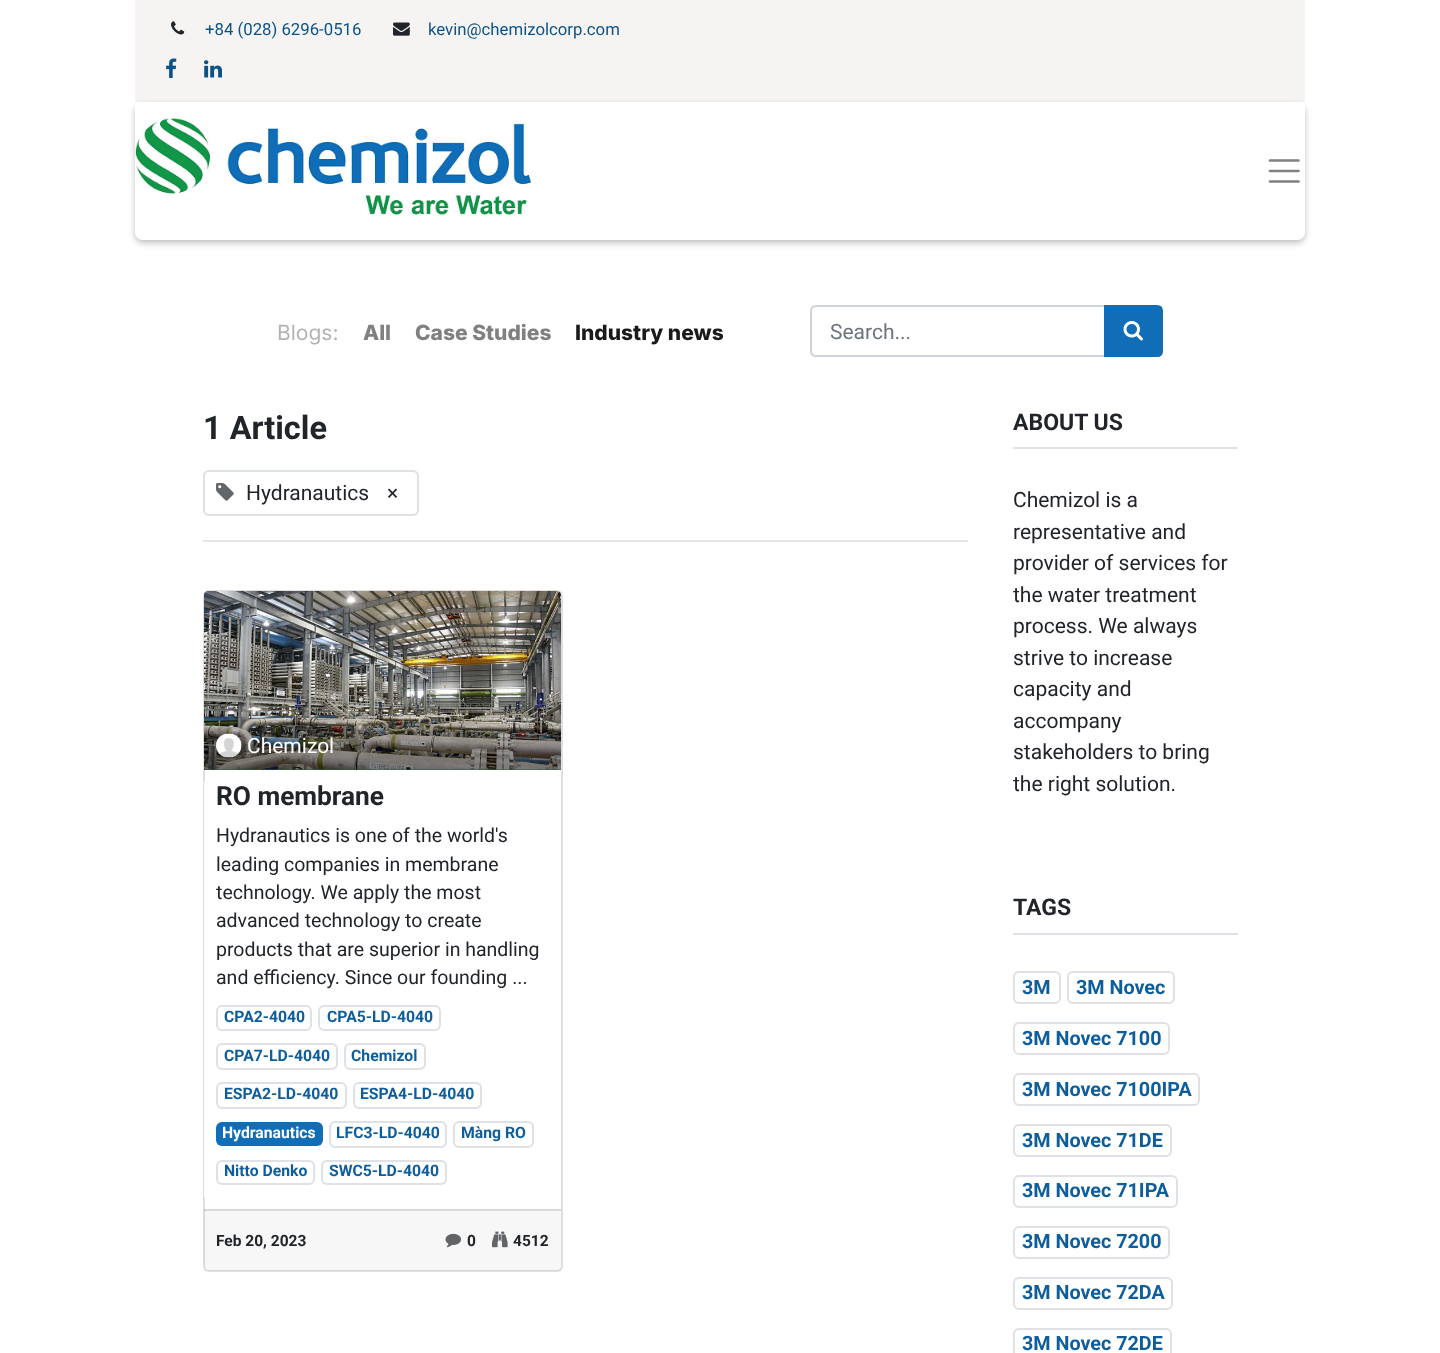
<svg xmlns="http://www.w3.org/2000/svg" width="1440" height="1353">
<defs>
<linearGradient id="g1" gradientUnits="userSpaceOnUse" x1="383" y1="710" x2="383" y2="770"><stop offset="0" stop-color="#000" stop-opacity="0"/><stop offset="0.19" stop-color="#000" stop-opacity="0.13"/><stop offset="0.34" stop-color="#000" stop-opacity="0.23"/><stop offset="0.47" stop-color="#000" stop-opacity="0.31"/><stop offset="0.56" stop-color="#000" stop-opacity="0.36"/><stop offset="0.65" stop-color="#000" stop-opacity="0.4"/><stop offset="0.73" stop-color="#000" stop-opacity="0.43"/><stop offset="0.8" stop-color="#000" stop-opacity="0.46"/><stop offset="0.86" stop-color="#000" stop-opacity="0.48"/><stop offset="0.91" stop-color="#000" stop-opacity="0.49"/><stop offset="0.95" stop-color="#000" stop-opacity="0.49"/><stop offset="0.98" stop-color="#000" stop-opacity="0.5"/><stop offset="1" stop-color="#000" stop-opacity="0.5"/></linearGradient>
</defs>
<rect width="100%" height="100%" fill="#fff"/>
<rect x="135" width="1170" height="102" fill="#f6f4f2"/>
<image x="171" y="21" width="14" height="14" href="media/1.png"/>
<text x="205" y="35" style="font-family:Roboto;font-size:16.75px;fill:#0c5289">+84 (028) 6296-0516</text>
<image x="393" y="22" width="17" height="14" href="media/2.png"/>
<text x="428" y="35" style="font-family:Roboto;font-size:16.75px;fill:#0c5289">kevin@chemizolcorp.com</text>
<image x="166" y="58" width="11" height="20" href="media/3.png"/>
<image x="204" y="60" width="18" height="18" href="media/4.png"/>
<rect x="135" y="105" width="1170" height="138" rx="8" fill="#00000040" filter="blur(3px)"/>
<path d="M135 102h1170v130c0 4.5-3.5 8-8 8h-1154c-4.5 0-8-3.5-8-8z" fill="#fff"/>
<image x="135" y="117" width="397" height="99" href="media/5.png"/>
<path d="M1270 160.5h28.5m-28.5 10.5h28.5m-28.5 10.5h28.5" fill="none" stroke="#808080" stroke-width="2.6" stroke-linecap="round"/>
<text x="277" y="340" style="font-family:Inter;font-size:21px;fill:#b3b3b3">Blogs:</text>
<text x="363" y="340" style="font-family:Inter;font-size:21px;font-weight:800;fill:#808080">All</text>
<text x="415" y="340" style="font-family:Inter;font-size:21px;font-weight:800;fill:#808080">Case Studies</text>
<text x="575" y="340" style="font-family:Inter;font-size:21px;font-weight:800;fill:#1a1a1a">Industry news</text>
<path d="M816 306h289v50h-289c-3 0-5-2-5-5v-40c0-3 2-5 5-5z" fill="none" stroke="#ced4da" stroke-width="2"/>
<text x="830" y="339" style="font-family:Roboto;font-size:21px;fill:#6c757d">Search...</text>
<path d="M1105 306h52c3 0 5 2 5 5v40c0 3-2 5-5 5h-52z" fill="#106eb8" stroke="#106eb8" stroke-width="2"/>
<image x="1123" y="321" width="20" height="20" href="media/6.png"/>
<text x="203" y="439" style="font-family:Roboto;font-size:32.5px;font-weight:bold;fill:#212529">1 Article</text>
<rect x="204" y="471" width="214" height="44" rx="5" fill="none" stroke="#dee2e6" stroke-width="2"/>
<image x="216" y="483" width="18" height="18" href="media/7.png"/>
<text x="246" y="500" style="font-family:Roboto;font-size:21px;fill:#212529">Hydranautics</text>
<text x="387" y="500" style="font-family:Roboto;font-size:21px;fill:#212529">×</text>
<rect x="203" y="540" width="765" height="2" fill="#e6e6e6"/>
<rect x="204" y="591" width="358" height="680" rx="5" fill="none" stroke="#dfdfdf" stroke-width="2"/>
<path d="M209 591h347c3 0 5 2 5 5v174h-357v-174c0-3 2-5 5-5z" fill="#109748"/>
<path d="M209 591c-3 0-5 2-5 5v174h357v-174c0-3-2-5-5-5zm-3 2v175h353v-175z" fill="#ffffff4d" fill-rule="evenodd"/>
<image x="204" y="591" width="357" height="179" href="media/8.png"/>
<rect x="204" y="712" width="357" height="58" fill="url(#g1)"/>
<image x="216" y="733" width="26" height="25" href="media/9.png"/>
<text x="247" y="753" style="font-family:Roboto;font-size:21px;fill:#fff">Chemizol</text>
<rect x="204" y="782" width="1" height="415" fill="#ffffffe6"/>
<text x="216" y="805" style="font-family:Roboto;font-size:26.25px;font-weight:bold;fill:#212529">RO membrane</text>
<text x="216" y="842" style="font-family:Roboto;font-size:19.5px;fill:#212529">Hydranautics is one of the world's</text>
<text x="216" y="871" style="font-family:Roboto;font-size:19.5px;fill:#212529">leading companies in membrane</text>
<text x="216" y="899" style="font-family:Roboto;font-size:19.5px;fill:#212529">technology. We apply the most</text>
<text x="216" y="927" style="font-family:Roboto;font-size:19.5px;fill:#212529">advanced technology to create</text>
<text x="216" y="956" style="font-family:Roboto;font-size:19.5px;fill:#212529">products that are superior in handling</text>
<text x="216" y="984" style="font-family:Roboto;font-size:19.5px;fill:#212529">and efficiency. Since our founding ...</text>
<rect x="217" y="1006" width="94" height="24" rx="5" fill="none" stroke="#dee2e6" stroke-width="2"/>
<text x="224" y="1022" style="font-family:Roboto;font-size:15.75px;font-weight:bold;fill:#0e5d9c">CPA2-4040</text>
<rect x="319" y="1006" width="121" height="24" rx="5" fill="none" stroke="#dee2e6" stroke-width="2"/>
<text x="327" y="1022" style="font-family:Roboto;font-size:15.75px;font-weight:bold;fill:#0e5d9c">CPA5-LD-4040</text>
<rect x="217" y="1044" width="120" height="25" rx="5" fill="none" stroke="#dee2e6" stroke-width="2"/>
<text x="224" y="1061" style="font-family:Roboto;font-size:15.75px;font-weight:bold;fill:#0e5d9c">CPA7-LD-4040</text>
<rect x="345" y="1044" width="80" height="25" rx="5" fill="none" stroke="#dee2e6" stroke-width="2"/>
<text x="351" y="1061" style="font-family:Roboto;font-size:15.75px;font-weight:bold;fill:#0e5d9c">Chemizol</text>
<rect x="217" y="1083" width="129" height="25" rx="5" fill="none" stroke="#dee2e6" stroke-width="2"/>
<text x="224" y="1099" style="font-family:Roboto;font-size:15.75px;font-weight:bold;fill:#0e5d9c">ESPA2-LD-4040</text>
<rect x="354" y="1083" width="127" height="25" rx="5" fill="none" stroke="#dee2e6" stroke-width="2"/>
<text x="360" y="1099" style="font-family:Roboto;font-size:15.75px;font-weight:bold;fill:#0e5d9c">ESPA4-LD-4040</text>
<rect x="216" y="1122" width="107" height="24" rx="6" fill="#106eb8"/>
<text x="222" y="1138" style="font-family:Roboto;font-size:15.75px;font-weight:bold;fill:#fff">Hydranautics</text>
<rect x="330" y="1122" width="116" height="25" rx="5" fill="none" stroke="#dee2e6" stroke-width="2"/>
<text x="336" y="1138" style="font-family:Roboto;font-size:15.75px;font-weight:bold;fill:#0e5d9c">LFC3-LD-4040</text>
<rect x="454" y="1122" width="79" height="25" rx="5" fill="none" stroke="#dee2e6" stroke-width="2"/>
<text x="461" y="1138" style="font-family:Roboto;font-size:15.75px;font-weight:bold;fill:#0e5d9c">Màng RO</text>
<rect x="217" y="1161" width="97" height="23" rx="5" fill="none" stroke="#dee2e6" stroke-width="2"/>
<text x="224" y="1176" style="font-family:Roboto;font-size:15.75px;font-weight:bold;fill:#0e5d9c">Nitto Denko</text>
<rect x="322" y="1161" width="124" height="23" rx="5" fill="none" stroke="#dee2e6" stroke-width="2"/>
<text x="329" y="1176" style="font-family:Roboto;font-size:15.75px;font-weight:bold;fill:#0e5d9c">SWC5-LD-4040</text>
<rect x="204" y="1209" width="357" height="62" fill="#00000008"/>
<rect x="204" y="1209" width="357" height="2" fill="#0000001f"/>
<text x="216" y="1246" style="font-family:Roboto;font-size:15.5px;font-weight:bold;fill:#212529">Feb 20, 2023</text>
<image x="445" y="1233" width="17" height="15" href="media/10.png"/>
<text x="467" y="1246" style="font-family:Roboto;font-size:15.5px;font-weight:bold;fill:#212529">0</text>
<image x="492" y="1231" width="16" height="17" href="media/11.png"/>
<text x="513" y="1246" style="font-family:Roboto;font-size:15.5px;font-weight:bold;fill:#212529">4512</text>
<rect x="1013" y="447" width="225" height="2" fill="#dee2e6"/>
<text x="1013" y="430" style="font-family:Roboto;font-size:23px;font-weight:bold;fill:#212529">ABOUT US</text>
<text x="1013" y="507" style="font-family:Roboto;font-size:21px;fill:#212529">Chemizol is a</text>
<text x="1013" y="539" style="font-family:Roboto;font-size:21px;fill:#212529">representative and</text>
<text x="1013" y="570" style="font-family:Roboto;font-size:21px;fill:#212529">provider of services for</text>
<text x="1013" y="602" style="font-family:Roboto;font-size:21px;fill:#212529">the water treatment</text>
<text x="1013" y="633" style="font-family:Roboto;font-size:21px;fill:#212529">process. We always</text>
<text x="1013" y="665" style="font-family:Roboto;font-size:21px;fill:#212529">strive to increase</text>
<text x="1013" y="696" style="font-family:Roboto;font-size:21px;fill:#212529">capacity and</text>
<text x="1013" y="728" style="font-family:Roboto;font-size:21px;fill:#212529">accompany</text>
<text x="1013" y="759" style="font-family:Roboto;font-size:21px;fill:#212529">stakeholders to bring</text>
<text x="1013" y="791" style="font-family:Roboto;font-size:21px;fill:#212529">the right solution.</text>
<rect x="1013" y="933" width="225" height="2" fill="#dee2e6"/>
<text x="1013" y="915" style="font-family:Roboto;font-size:23px;font-weight:bold;fill:#212529">TAGS</text>
<rect x="1014" y="972" width="46" height="31" rx="5" fill="none" stroke="#dee2e6" stroke-width="2"/>
<text x="1022" y="994" style="font-family:Roboto;font-size:19.75px;font-weight:bold;fill:#0e5d9c">3M</text>
<rect x="1068" y="972" width="106" height="31" rx="5" fill="none" stroke="#dee2e6" stroke-width="2"/>
<text x="1076" y="994" style="font-family:Roboto;font-size:19.75px;font-weight:bold;fill:#0e5d9c">3M Novec</text>
<rect x="1014" y="1023" width="155" height="31" rx="5" fill="none" stroke="#dee2e6" stroke-width="2"/>
<text x="1022" y="1045" style="font-family:Roboto;font-size:19.75px;font-weight:bold;fill:#0e5d9c">3M Novec 7100</text>
<rect x="1014" y="1074" width="185" height="31" rx="5" fill="none" stroke="#dee2e6" stroke-width="2"/>
<text x="1022" y="1096" style="font-family:Roboto;font-size:19.75px;font-weight:bold;fill:#0e5d9c">3M Novec 7100IPA</text>
<rect x="1014" y="1125" width="157" height="31" rx="5" fill="none" stroke="#dee2e6" stroke-width="2"/>
<text x="1022" y="1147" style="font-family:Roboto;font-size:19.75px;font-weight:bold;fill:#0e5d9c">3M Novec 71DE</text>
<rect x="1014" y="1176" width="163" height="31" rx="5" fill="none" stroke="#dee2e6" stroke-width="2"/>
<text x="1022" y="1197" style="font-family:Roboto;font-size:19.75px;font-weight:bold;fill:#0e5d9c">3M Novec 71IPA</text>
<rect x="1014" y="1227" width="155" height="31" rx="5" fill="none" stroke="#dee2e6" stroke-width="2"/>
<text x="1022" y="1248" style="font-family:Roboto;font-size:19.75px;font-weight:bold;fill:#0e5d9c">3M Novec 7200</text>
<rect x="1014" y="1278" width="158" height="31" rx="5" fill="none" stroke="#dee2e6" stroke-width="2"/>
<text x="1022" y="1299" style="font-family:Roboto;font-size:19.75px;font-weight:bold;fill:#0e5d9c">3M Novec 72DA</text>
<rect x="1014" y="1329" width="157" height="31" rx="5" fill="none" stroke="#dee2e6" stroke-width="2"/>
<text x="1022" y="1350" style="font-family:Roboto;font-size:19.75px;font-weight:bold;fill:#0e5d9c">3M Novec 72DE</text>
</svg>
